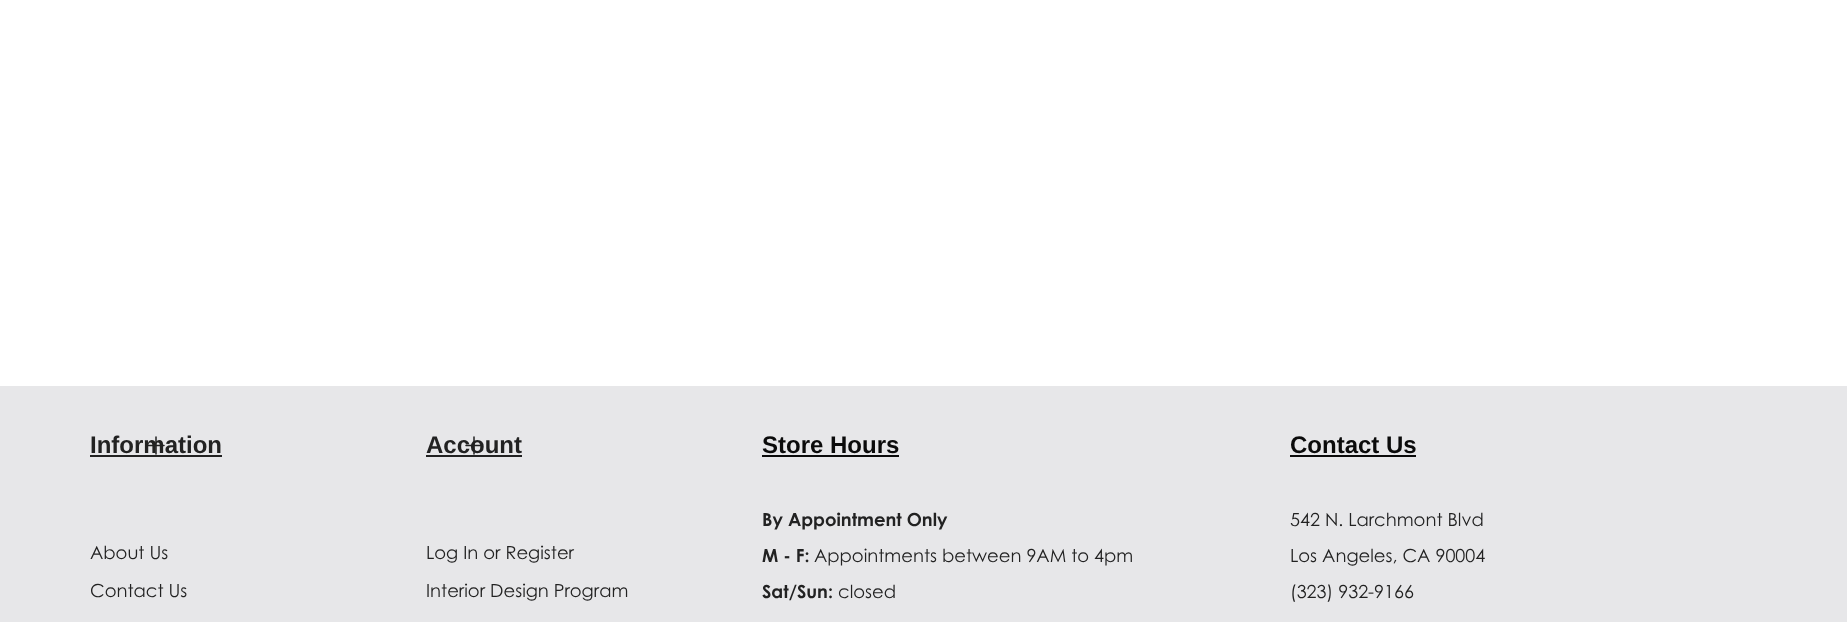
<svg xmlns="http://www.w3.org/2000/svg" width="1847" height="622">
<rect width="100%" height="100%" fill="#fff"/>
<rect y="386" width="1847" height="236" fill="#e7e7e9"/>
<text x="90" y="453" style="font-family:Liberation Sans;font-size:24px;font-weight:bold;fill:#222">Information</text>
<rect x="90" y="455" width="132" height="2" fill="#222"/>
<path d="M148 445.5h16m-8-8.5v17" fill="none" stroke="#222" stroke-width="1.5" stroke-linecap="round" stroke-linejoin="round"/>
<text x="90" y="559" style="font-family:Century Gothic;font-size:18px;fill:#222">About Us</text>
<text x="90" y="597" style="font-family:Century Gothic;font-size:18px;fill:#222">Contact Us</text>
<text x="426" y="453" style="font-family:Liberation Sans;font-size:24px;font-weight:bold;fill:#222">Account</text>
<rect x="426" y="455" width="96" height="2" fill="#222"/>
<path d="M466 445.5h16m-8-8.5v17" fill="none" stroke="#222" stroke-width="1.5" stroke-linecap="round" stroke-linejoin="round"/>
<text x="426" y="559" style="font-family:Century Gothic;font-size:18px;fill:#222">Log In or Register</text>
<text x="426" y="597" style="font-family:Century Gothic;font-size:18px;fill:#222">Interior Design Program</text>
<text x="762" y="453" style="font-family:Liberation Sans;font-size:24px;font-weight:bold;fill:#0b0b0b">Store Hours</text>
<rect x="762" y="455" width="137" height="2" fill="#0b0b0b"/>
<text x="762" y="526" style="font-family:Century Gothic;font-size:18px;font-weight:bold;fill:#222">By Appointment Only</text>
<text x="762" y="562" style="font-family:Century Gothic;font-size:18px;font-weight:bold;fill:#222">M - F:</text>
<text x="814" y="562" style="font-family:Century Gothic;font-size:18px;fill:#222">Appointments between 9AM to 4pm</text>
<text x="762" y="598" style="font-family:Century Gothic;font-size:18px;font-weight:bold;fill:#222">Sat/Sun:</text>
<text x="838" y="598" style="font-family:Century Gothic;font-size:18px;fill:#222">closed</text>
<text x="1290" y="453" style="font-family:Liberation Sans;font-size:24px;font-weight:bold;fill:#0b0b0b">Contact Us</text>
<rect x="1290" y="455" width="126" height="2" fill="#0b0b0b"/>
<text x="1290" y="526" style="font-family:Century Gothic;font-size:18px;fill:#222">542 N. Larchmont Blvd</text>
<text x="1290" y="562" style="font-family:Century Gothic;font-size:18px;fill:#222">Los Angeles, CA 90004</text>
<text x="1290" y="598" style="font-family:Century Gothic;font-size:18px;fill:#222">(323) 932-9166</text>
</svg>
